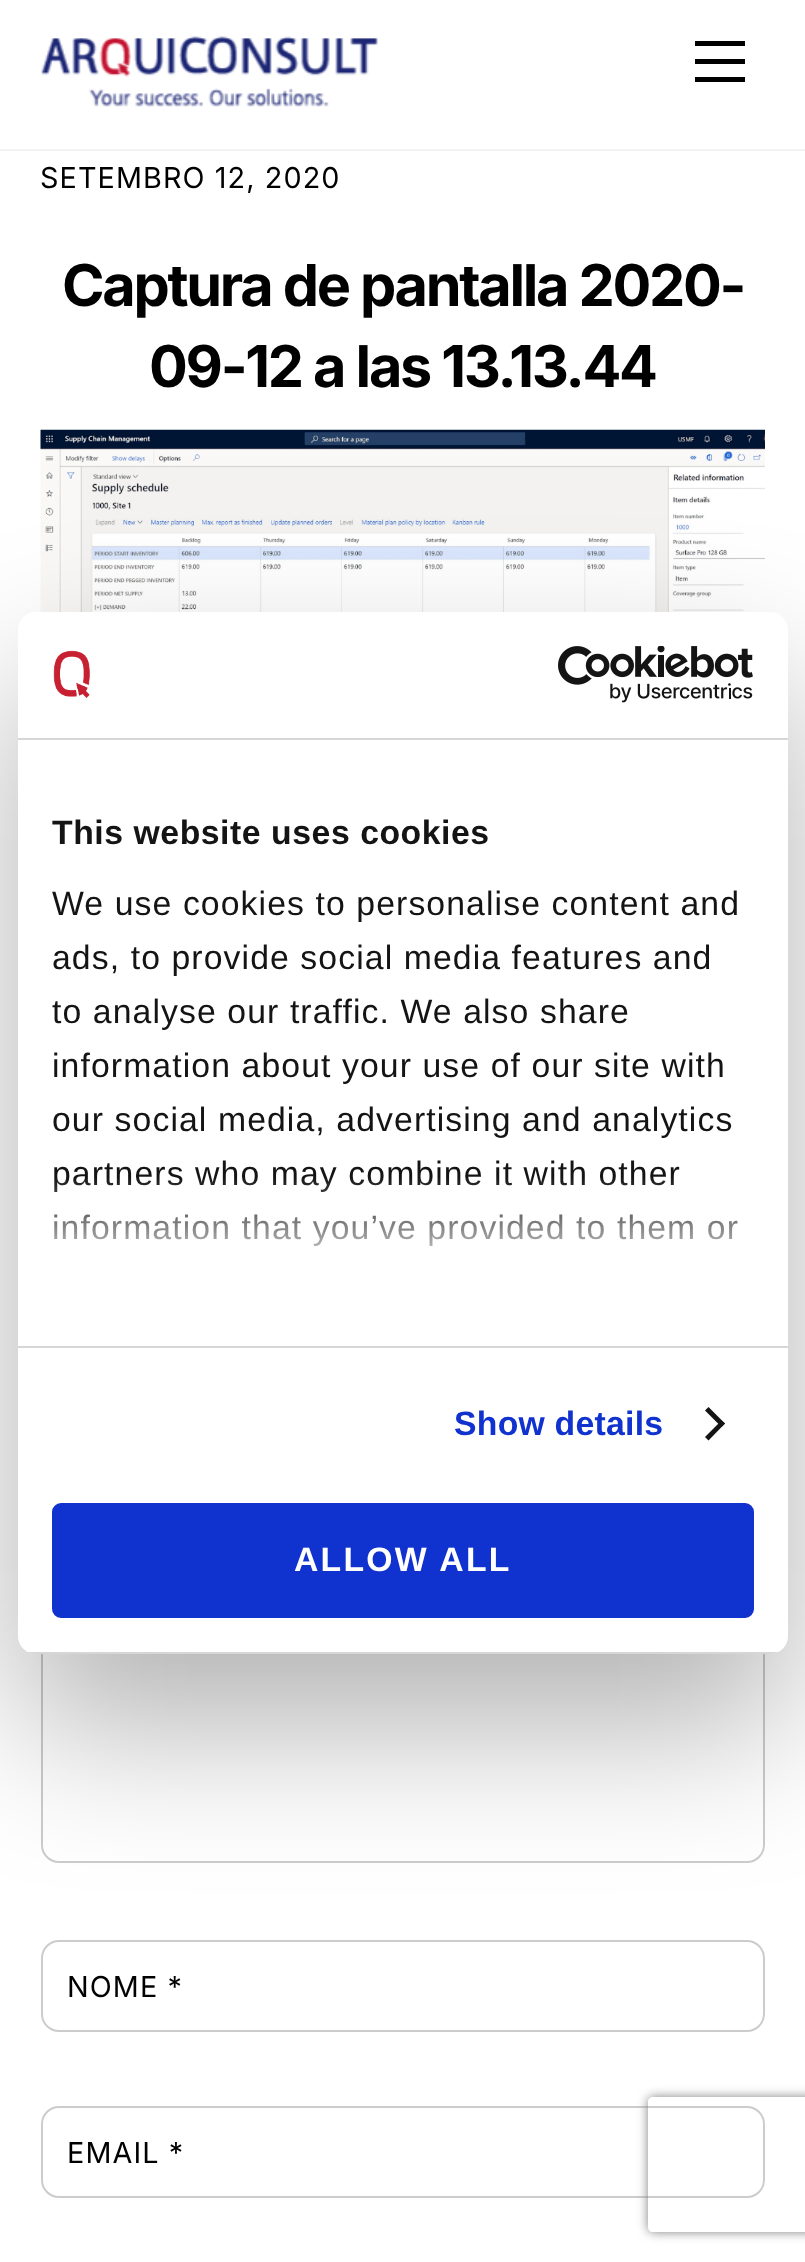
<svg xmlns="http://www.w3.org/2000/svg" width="805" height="2262">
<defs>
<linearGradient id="g1" gradientUnits="userSpaceOnUse" x1="388" y1="1345" x2="388" y2="1176"><stop offset="0" stop-color="#fff"/><stop offset="0.5" stop-color="#fff" stop-opacity="0.8"/><stop offset="1" stop-color="#fff" stop-opacity="0"/></linearGradient>
<clipPath id="clip1"><rect x="18" y="612" width="770" height="1042" rx="18"/></clipPath>
<clipPath id="clip2"><path d="M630 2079h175v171h-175zm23 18h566c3 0 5 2 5 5v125c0 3-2 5-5 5h-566c-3 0-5-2-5-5v-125c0-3 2-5 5-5z" clip-rule="evenodd"/></clipPath>
</defs>
<rect width="100%" height="100%" fill="#fff"/>
<rect y="149" width="805" height="2" fill="#f2f2f2"/>
<image x="41" y="36" width="337" height="71" href="media/1.png"/>
<rect x="695" y="77" width="50" height="5" fill="#000"/>
<rect x="695" y="41" width="50" height="5" fill="#000"/>
<rect x="695" y="59" width="50" height="5" fill="#000"/>
<text x="40" y="188" style="font-family:Inter;font-size:28.75px;letter-spacing:1.1px;fill:#000">SETEMBRO 12, 2020</text>
<text x="62" y="306" style="font-family:Inter;font-size:57.6px;font-weight:bold;letter-spacing:-2.3px;fill:#000">Captura de pantalla 2020-</text>
<text x="149" y="387" style="font-family:Inter;font-size:57.6px;font-weight:bold;letter-spacing:-2.3px;fill:#000">09-12 a las 13.13.44</text>
<image x="40" y="429" width="725" height="183" href="media/2.png"/>
<rect x="42" y="1378" width="722" height="484" rx="17" fill="none" stroke="#ccc" stroke-width="2"/>
<rect x="42" y="1941" width="722" height="90" rx="17" fill="none" stroke="#ccc" stroke-width="2"/>
<text x="67" y="1997" style="font-family:Inter;font-size:28.75px;letter-spacing:1.1px;fill:#000">NOME *</text>
<rect x="42" y="2107" width="722" height="90" rx="17" fill="none" stroke="#ccc" stroke-width="2"/>
<text x="67" y="2163" style="font-family:Inter;font-size:28.75px;letter-spacing:1.1px;fill:#000">EMAIL *</text>
<rect x="18" y="684" width="770" height="1042" rx="18" fill="#0000004d" filter="blur(76.5px)"/>
<rect x="18" y="612" width="770" height="1042" rx="18" fill="#fff"/>
<rect x="18" y="738" width="770" height="2" fill="#d6d6d6"/>
<image x="53" y="650" width="37" height="49" href="media/3.png"/>
<image x="558" y="646" width="195" height="57" href="media/4.png"/>
<rect x="18" y="1346" width="770" height="2" fill="#d6d6d6"/>
<text x="52" y="844" style="font-family:Liberation Sans;font-size:33.75px;font-weight:bold;letter-spacing:0.55px;fill:#141414">This website uses cookies</text>
<text x="52" y="915" style="font-family:Liberation Sans;font-size:33.75px;letter-spacing:1.1px;fill:#141414">We use cookies to personalise content and</text>
<text x="52" y="969" style="font-family:Liberation Sans;font-size:33.75px;letter-spacing:1.1px;fill:#141414">ads, to provide social media features and</text>
<text x="52" y="1023" style="font-family:Liberation Sans;font-size:33.75px;letter-spacing:1.1px;fill:#141414">to analyse our traffic. We also share</text>
<text x="52" y="1077" style="font-family:Liberation Sans;font-size:33.75px;letter-spacing:1.1px;fill:#141414">information about your use of our site with</text>
<text x="52" y="1131" style="font-family:Liberation Sans;font-size:33.75px;letter-spacing:1.1px;fill:#141414">our social media, advertising and analytics</text>
<text x="52" y="1185" style="font-family:Liberation Sans;font-size:33.75px;letter-spacing:1.1px;fill:#141414">partners who may combine it with other</text>
<text x="52" y="1239" style="font-family:Liberation Sans;font-size:33.75px;letter-spacing:1.1px;fill:#141414">information that you’ve provided to them or</text>
<rect x="54" y="1178" width="685" height="68" fill="url(#g1)"/>
<text x="454" y="1435" style="font-family:Liberation Sans;font-size:33.75px;font-weight:bold;letter-spacing:0.25px;fill:#1032cf">Show details</text>
<path d="M708.5 1407l16.5 16.5l-3.5 3.5l-16.5-16.5z" fill="#141414"/>
<path d="M721.5 1420.5l3.5 3l-16.5 17l-3.5-3.5z" fill="#141414"/>
<g clip-path="url(#clip1)">
<rect x="28" y="1652" width="750" height="2" fill="#d6d6d6"/>
</g>
<rect x="54.5" y="1505.5" width="697" height="110" rx="6.5" fill="#1032cf" stroke="#1032cf" stroke-width="5"/>
<text x="294" y="1571" style="font-family:Liberation Sans;font-size:33.75px;font-weight:bold;letter-spacing:2.25px;fill:#fff">ALLOW ALL</text>
<g clip-path="url(#clip2)">
<rect x="648" y="2097" width="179" height="135" rx="5" fill="#808080" filter="blur(5.5px)"/>
</g>
</svg>
